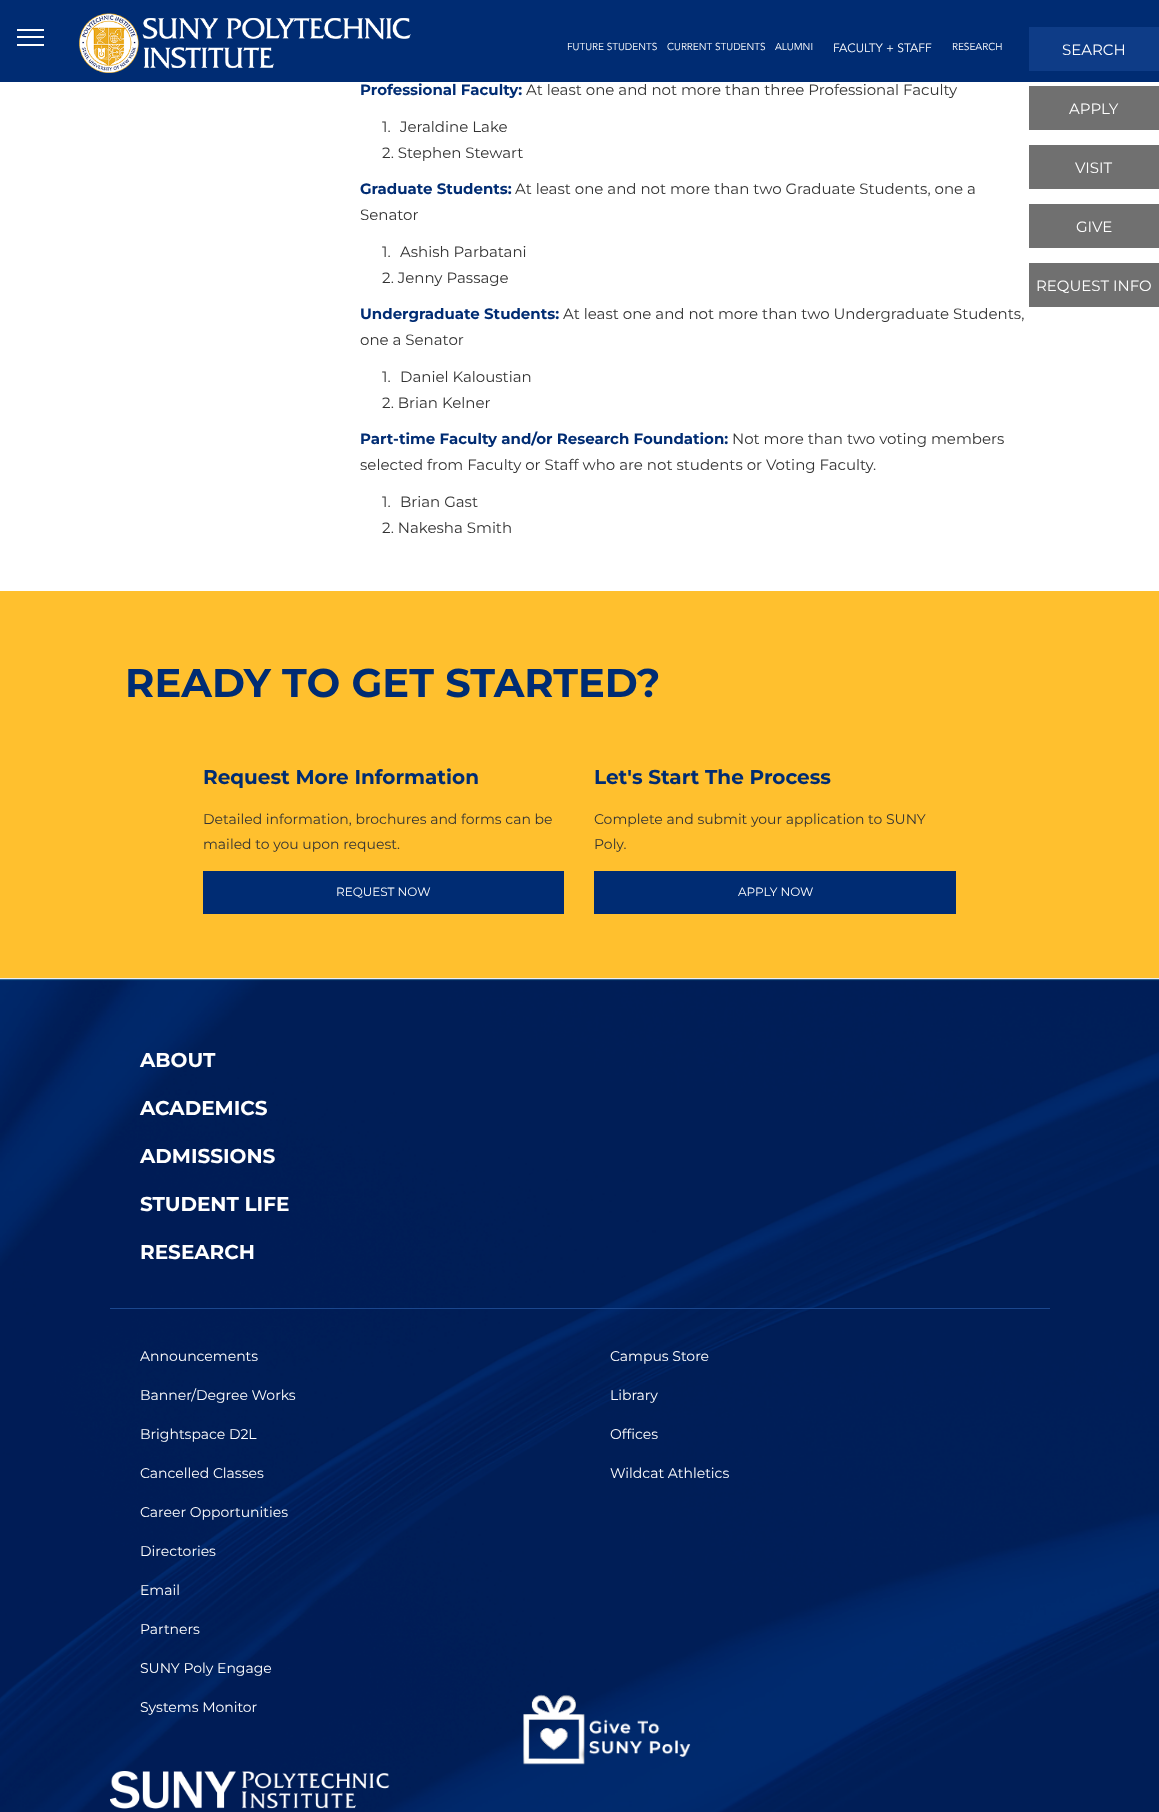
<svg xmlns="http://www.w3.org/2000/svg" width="1159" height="1812">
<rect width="100%" height="100%" fill="#fff"/>
<rect width="1159" height="82" fill="#002c73"/>
<image x="17" y="29" width="27" height="17" href="media/1.png"/>
<image x="79" y="13" width="332" height="60" href="media/2.png"/>
<text x="567" y="50" style="font-family:'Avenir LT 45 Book';font-size:10px;fill:#fff">FUTURE STUDENTS</text>
<text x="667" y="50" style="font-family:'Avenir LT 45 Book';font-size:10px;fill:#fff">CURRENT STUDENTS</text>
<text x="775" y="50" style="font-family:'Avenir LT 45 Book';font-size:10px;fill:#fff">ALUMNI</text>
<text x="833" y="52" style="font-family:'Avenir LT 45 Book';font-size:12px;fill:#fff">FACULTY + STAFF</text>
<text x="952" y="50" style="font-family:'Avenir LT 45 Book';font-size:10px;fill:#fff">RESEARCH</text>
<rect x="1029" y="27" width="130" height="44" fill="#0e3c87"/>
<text x="1062" y="55" style="font-family:Montserrat;font-size:15px;fill:#fff">SEARCH</text>
<rect x="1029" y="86" width="130" height="44" fill="#707070"/>
<text x="1069" y="114" style="font-family:Montserrat;font-size:15px;fill:#fff">APPLY</text>
<rect x="1029" y="145" width="130" height="44" fill="#707070"/>
<text x="1075" y="173" style="font-family:Montserrat;font-size:15px;fill:#fff">VISIT</text>
<rect x="1029" y="204" width="130" height="44" fill="#707070"/>
<text x="1076" y="232" style="font-family:Montserrat;font-size:15px;fill:#fff">GIVE</text>
<rect x="1029" y="263" width="130" height="44" fill="#707070"/>
<text x="1036" y="291" style="font-family:Montserrat;font-size:15px;fill:#fff">REQUEST INFO</text>
<text x="360" y="95" style="font-family:Montserrat;font-size:15px;font-weight:bold;fill:#002c73">Professional Faculty:</text>
<text x="526" y="95" style="font-family:Montserrat;font-size:15px;fill:#333">At least one and not more than three Professional Faculty</text>
<text x="382" y="132" style="font-family:Montserrat;font-size:15px;fill:#333">1.</text>
<text x="400" y="132" style="font-family:Montserrat;font-size:15px;fill:#333">Jeraldine Lake</text>
<text x="382" y="158" style="font-family:Montserrat;font-size:15px;fill:#333">2. Stephen Stewart</text>
<text x="360" y="194" style="font-family:Montserrat;font-size:15px;font-weight:bold;fill:#002c73">Graduate Students:</text>
<text x="515" y="194" style="font-family:Montserrat;font-size:15px;fill:#333">At least one and not more than two Graduate Students, one a</text>
<text x="360" y="220" style="font-family:Montserrat;font-size:15px;fill:#333">Senator</text>
<text x="382" y="257" style="font-family:Montserrat;font-size:15px;fill:#333">1.</text>
<text x="400" y="257" style="font-family:Montserrat;font-size:15px;fill:#333">Ashish Parbatani</text>
<text x="382" y="283" style="font-family:Montserrat;font-size:15px;fill:#333">2. Jenny Passage</text>
<text x="360" y="319" style="font-family:Montserrat;font-size:15px;font-weight:bold;fill:#002c73">Undergraduate Students:</text>
<text x="563" y="319" style="font-family:Montserrat;font-size:15px;fill:#333">At least one and not more than two Undergraduate Students,</text>
<text x="360" y="345" style="font-family:Montserrat;font-size:15px;fill:#333">one a Senator</text>
<text x="382" y="382" style="font-family:Montserrat;font-size:15px;fill:#333">1.</text>
<text x="400" y="382" style="font-family:Montserrat;font-size:15px;fill:#333">Daniel Kaloustian</text>
<text x="382" y="408" style="font-family:Montserrat;font-size:15px;fill:#333">2. Brian Kelner</text>
<text x="360" y="444" style="font-family:Montserrat;font-size:15px;font-weight:bold;fill:#002c73">Part-time Faculty and/or Research Foundation:</text>
<text x="732" y="444" style="font-family:Montserrat;font-size:15px;fill:#333">Not more than two voting members</text>
<text x="360" y="470" style="font-family:Montserrat;font-size:15px;fill:#333">selected from Faculty or Staff who are not students or Voting Faculty.</text>
<text x="382" y="507" style="font-family:Montserrat;font-size:15px;fill:#333">1.</text>
<text x="400" y="507" style="font-family:Montserrat;font-size:15px;fill:#333">Brian Gast</text>
<text x="382" y="533" style="font-family:Montserrat;font-size:15px;fill:#333">2. Nakesha Smith</text>
<rect y="591" width="1159" height="387" fill="#ffc02e"/>
<text x="125" y="697" style="font-family:Montserrat;font-size:40px;font-weight:bold;fill:#002c73">READY TO GET STARTED?</text>
<text x="203" y="784" style="font-family:Montserrat;font-size:20px;font-weight:bold;fill:#002c73">Request More Information</text>
<text x="203" y="824" style="font-family:Montserrat;font-size:14px;fill:#333">Detailed information, brochures and forms can be</text>
<text x="203" y="849" style="font-family:Montserrat;font-size:14px;fill:#333">mailed to you upon request.</text>
<rect x="203" y="871" width="361" height="43" fill="#002c73"/>
<text x="336" y="896" style="font-family:Montserrat;font-size:12px;fill:#fff">REQUEST NOW</text>
<text x="594" y="784" style="font-family:Montserrat;font-size:20px;font-weight:bold;fill:#002c73">Let's Start The Process</text>
<text x="594" y="824" style="font-family:Montserrat;font-size:14px;fill:#333">Complete and submit your application to SUNY</text>
<text x="594" y="849" style="font-family:Montserrat;font-size:14px;fill:#333">Poly.</text>
<rect x="594" y="871" width="362" height="43" fill="#002c73"/>
<text x="738" y="896" style="font-family:Montserrat;font-size:12px;fill:#fff">APPLY NOW</text>
<image x="0" y="978" width="1159" height="834" href="media/3.png"/>
<text x="140" y="1067" style="font-family:Montserrat;font-size:20px;font-weight:bold;fill:#fff">ABOUT</text>
<text x="140" y="1115" style="font-family:Montserrat;font-size:20px;font-weight:bold;fill:#fff">ACADEMICS</text>
<text x="140" y="1163" style="font-family:Montserrat;font-size:20px;font-weight:bold;fill:#fff">ADMISSIONS</text>
<text x="140" y="1211" style="font-family:Montserrat;font-size:20px;font-weight:bold;fill:#fff">STUDENT LIFE</text>
<text x="140" y="1259" style="font-family:Montserrat;font-size:20px;font-weight:bold;fill:#fff">RESEARCH</text>
<rect x="110" y="1308" width="940" height="1" fill="#1b478e"/>
<text x="140" y="1361" style="font-family:Montserrat;font-size:14px;fill:#fff">Announcements</text>
<text x="140" y="1400" style="font-family:Montserrat;font-size:14px;fill:#fff">Banner/Degree Works</text>
<text x="140" y="1439" style="font-family:Montserrat;font-size:14px;fill:#fff">Brightspace D2L</text>
<text x="140" y="1478" style="font-family:Montserrat;font-size:14px;fill:#fff">Cancelled Classes</text>
<text x="140" y="1517" style="font-family:Montserrat;font-size:14px;fill:#fff">Career Opportunities</text>
<text x="140" y="1556" style="font-family:Montserrat;font-size:14px;fill:#fff">Directories</text>
<text x="140" y="1595" style="font-family:Montserrat;font-size:14px;fill:#fff">Email</text>
<text x="140" y="1634" style="font-family:Montserrat;font-size:14px;fill:#fff">Partners</text>
<text x="140" y="1673" style="font-family:Montserrat;font-size:14px;fill:#fff">SUNY Poly Engage</text>
<text x="140" y="1712" style="font-family:Montserrat;font-size:14px;fill:#fff">Systems Monitor</text>
<text x="610" y="1361" style="font-family:Montserrat;font-size:14px;fill:#fff">Campus Store</text>
<text x="610" y="1400" style="font-family:Montserrat;font-size:14px;fill:#fff">Library</text>
<text x="610" y="1439" style="font-family:Montserrat;font-size:14px;fill:#fff">Offices</text>
<text x="610" y="1478" style="font-family:Montserrat;font-size:14px;fill:#fff">Wildcat Athletics</text>
<image x="523" y="1694" width="168" height="71" href="media/4.png"/>
<image x="110" y="1771" width="280" height="38" href="media/5.png"/>
</svg>
